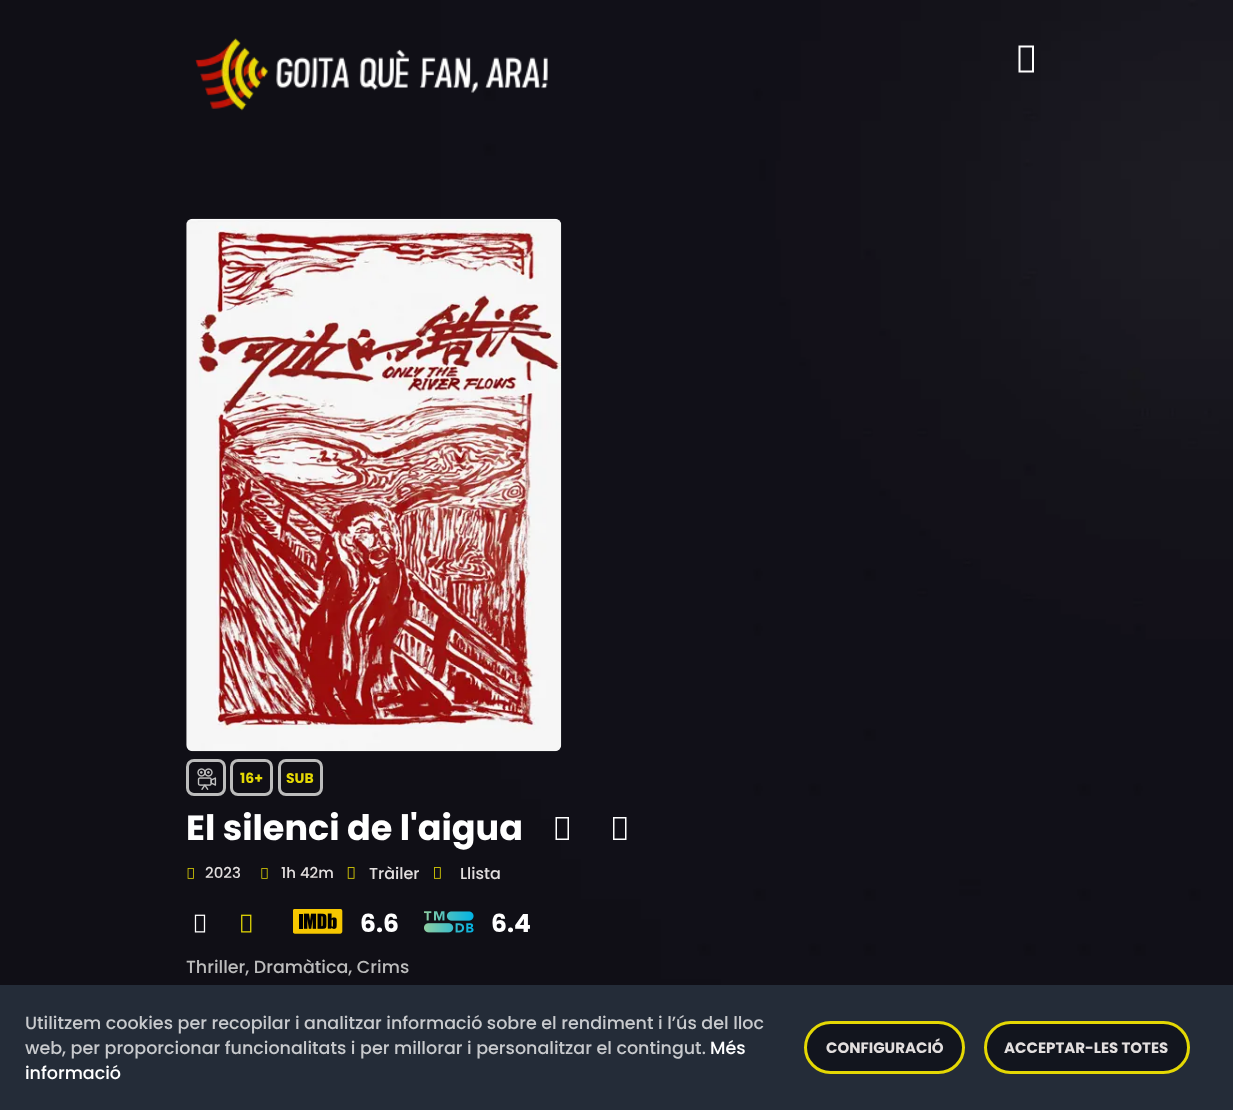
<svg xmlns="http://www.w3.org/2000/svg" width="1233" height="1110">
<rect width="100%" height="100%" fill="#fff"/>
<image x="0" y="0" width="1233" height="985" href="media/1.png"/>
<image x="195" y="38" width="353" height="73" href="media/2.png"/>
<path d="M1018.5 72.5v-27h15.5v27zm2-2h11.5v-23h-11.5z" fill="#fff"/>
<image x="186" y="218" width="376" height="534" href="media/3.png"/>
<rect x="187.5" y="760.5" width="37" height="34" rx="6.5" fill="none" stroke="#bcbcbc" stroke-width="3"/>
<image x="197" y="768" width="20" height="22" href="media/4.png"/>
<rect x="231.5" y="760.5" width="40" height="34" rx="6.5" fill="none" stroke="#bcbcbc" stroke-width="3"/>
<text x="240" y="783" style="font-family:Poppins;font-size:14px;font-weight:bold;fill:#e4d804">16+</text>
<rect x="279.5" y="760.5" width="42" height="34" rx="6.5" fill="none" stroke="#bcbcbc" stroke-width="3"/>
<text x="286" y="783" style="font-family:Poppins;font-size:14px;font-weight:bold;fill:#e4d804">SUB</text>
<text x="186" y="840" style="font-family:Poppins;font-size:35px;font-weight:bold;fill:#fff">El silenci de l'aigua</text>
<path d="M555.5 840v-23h13.5v23zm1.5-1.5h10.5v-20h-10.5z" fill="#fff"/>
<path d="M613 840v-23h13.5v23zm1.5-1.5h10.5v-20h-10.5z" fill="#fff"/>
<image x="187" y="868" width="7" height="11" href="media/5.png"/>
<text x="205" y="878" style="font-family:Poppins;font-size:15px;font-weight:500;fill:#e3dfdf">2023</text>
<image x="261" y="868" width="7" height="11" href="media/6.png"/>
<text x="281" y="878" style="font-family:Poppins;font-size:15px;font-weight:500;fill:#e3dfdf">1h 42m</text>
<image x="347" y="867" width="8" height="12" href="media/7.png"/>
<text x="369" y="879" style="font-family:Poppins;font-size:16px;font-weight:500;fill:#e3dfdf">Tràiler</text>
<image x="434" y="867" width="7" height="12" href="media/8.png"/>
<text x="460" y="879" style="font-family:Poppins;font-size:16px;font-weight:500;fill:#e3dfdf">Llista</text>
<image x="194" y="914" width="12" height="19" href="media/9.png"/>
<image x="241" y="914" width="11" height="19" href="media/10.png"/>
<image x="293" y="909" width="50" height="25" href="media/11.png"/>
<text x="360" y="932" style="font-family:Poppins;font-size:25px;font-weight:bold;fill:#fff">6.6</text>
<image x="424" y="911" width="50" height="22" href="media/12.png"/>
<text x="491" y="932" style="font-family:Poppins;font-size:25px;font-weight:bold;fill:#fff">6.4</text>
<text x="186" y="973" style="font-family:Poppins;font-size:17.5px;font-weight:500;fill:#bcbcbc">Thriller, Dramàtica, Crims</text>
<rect y="985" width="1233" height="125" fill="#242c38"/>
<text x="25" y="1029" style="font-family:Poppins;font-size:17.5px;font-weight:500;fill:#c8cacd">Utilitzem cookies per recopilar i analitzar informació sobre el rendiment i l’ús del lloc</text>
<text x="25" y="1054" style="font-family:Poppins;font-size:17.5px;font-weight:500;fill:#c8cacd">web, per proporcionar funcionalitats i per millorar i personalitzar el contingut.</text>
<text x="710" y="1054" style="font-family:Poppins;font-size:17.5px;font-weight:500;fill:#fff">Més</text>
<text x="25" y="1079" style="font-family:Poppins;font-size:17.5px;font-weight:500;fill:#fff">informació</text>
<rect x="805.5" y="1022.5" width="158" height="50" rx="25" fill="#12151e" stroke="#e4d804" stroke-width="3"/>
<text x="826" y="1053" style="font-family:Poppins;font-size:15px;font-weight:bold;fill:#e3dfdf">CONFIGURACIÓ</text>
<rect x="985.5" y="1022.5" width="203" height="50" rx="25" fill="#12151e" stroke="#e4d804" stroke-width="3"/>
<text x="1004" y="1053" style="font-family:Poppins;font-size:15px;font-weight:bold;fill:#e3dfdf">ACCEPTAR-LES TOTES</text>
</svg>
